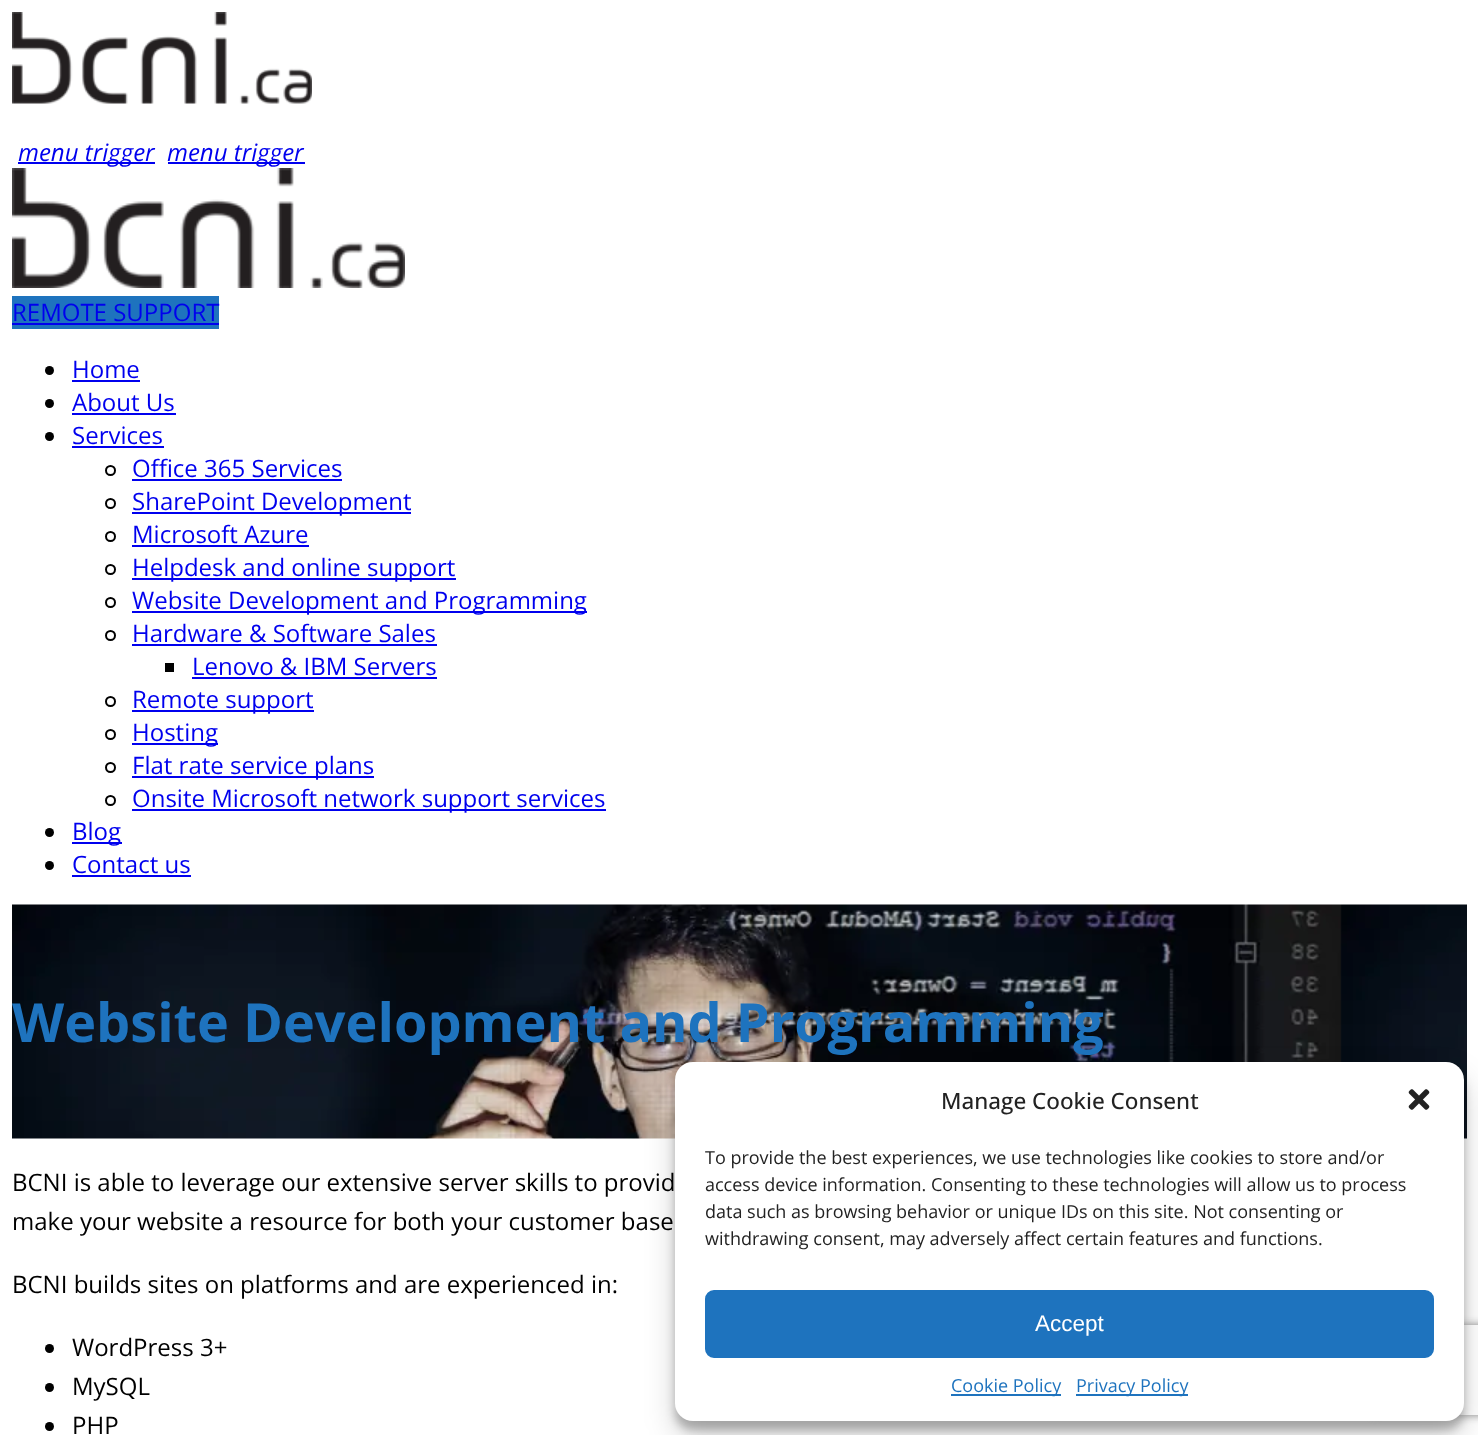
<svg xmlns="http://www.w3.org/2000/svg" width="1478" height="1435">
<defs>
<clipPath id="clip1"><path d="M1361 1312h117v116h-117zm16 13h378c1.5 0 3 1.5 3 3v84c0 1.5-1.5 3-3 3h-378c-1.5 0-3-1.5-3-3v-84c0-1.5 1.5-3 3-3z" clip-rule="evenodd"/></clipPath>
</defs>
<rect width="100%" height="100%" fill="#fff"/>
<image x="12" y="12" width="300" height="92" href="media/1.png"/>
<rect x="18" y="162" width="137" height="2" fill="#00e"/>
<text x="18" y="161" style="font-family:Open Sans;font-size:24px;font-style:italic;fill:#00e">menu trigger</text>
<rect x="168" y="162" width="137" height="2" fill="#00e"/>
<text x="167" y="161" style="font-family:Open Sans;font-size:24px;font-style:italic;fill:#00e">menu trigger</text>
<image x="12" y="168" width="393" height="120" href="media/2.png"/>
<rect x="12" y="296" width="207" height="33" fill="#1e73be"/>
<text x="12" y="321" style="font-family:Open Sans;font-size:24px;fill:#00e">REMOTE SUPPORT</text>
<rect x="12" y="323" width="207" height="2" fill="#00e"/>
<circle cx="49.5" cy="370.5" r="4.5" fill="#000"/>
<text x="72" y="378" style="font-family:Open Sans;font-size:24px;fill:#00e">Home</text>
<rect x="72" y="380" width="68" height="2" fill="#00e"/>
<circle cx="49.5" cy="403.5" r="4.5" fill="#000"/>
<text x="72" y="411" style="font-family:Open Sans;font-size:24px;fill:#00e">About Us</text>
<rect x="72" y="413" width="104" height="2" fill="#00e"/>
<circle cx="49.5" cy="436.5" r="4.5" fill="#000"/>
<text x="72" y="444" style="font-family:Open Sans;font-size:24px;fill:#00e">Services</text>
<rect x="72" y="446" width="92" height="2" fill="#00e"/>
<circle cx="110.5" cy="470.5" r="4.5" fill="none" stroke="#000" stroke-width="2"/>
<text x="132" y="477" style="font-family:Open Sans;font-size:24px;fill:#00e">Office 365 Services</text>
<rect x="132" y="479" width="210" height="2" fill="#00e"/>
<circle cx="110.5" cy="503.5" r="4.5" fill="none" stroke="#000" stroke-width="2"/>
<rect x="132" y="512" width="279" height="2" fill="#00e"/>
<text x="132" y="510" style="font-family:Open Sans;font-size:24px;fill:#00e">SharePoint Development</text>
<circle cx="110.5" cy="536.5" r="4.5" fill="none" stroke="#000" stroke-width="2"/>
<text x="132" y="543" style="font-family:Open Sans;font-size:24px;fill:#00e">Microsoft Azure</text>
<rect x="132" y="545" width="177" height="2" fill="#00e"/>
<circle cx="110.5" cy="569.5" r="4.5" fill="none" stroke="#000" stroke-width="2"/>
<rect x="132" y="578" width="324" height="2" fill="#00e"/>
<text x="132" y="576" style="font-family:Open Sans;font-size:24px;fill:#00e">Helpdesk and online support</text>
<circle cx="110.5" cy="602.5" r="4.5" fill="none" stroke="#000" stroke-width="2"/>
<rect x="132" y="611" width="455" height="2" fill="#00e"/>
<text x="132" y="609" style="font-family:Open Sans;font-size:24px;fill:#00e">Website Development and Programming</text>
<circle cx="110.5" cy="635.5" r="4.5" fill="none" stroke="#000" stroke-width="2"/>
<text x="132" y="642" style="font-family:Open Sans;font-size:24px;fill:#00e">Hardware &amp; Software Sales</text>
<rect x="132" y="644" width="305" height="2" fill="#00e"/>
<rect x="165" y="663" width="9" height="9" fill="#000"/>
<text x="192" y="675" style="font-family:Open Sans;font-size:24px;fill:#00e">Lenovo &amp; IBM Servers</text>
<rect x="192" y="677" width="245" height="2" fill="#00e"/>
<circle cx="110.5" cy="701.5" r="4.5" fill="none" stroke="#000" stroke-width="2"/>
<rect x="132" y="710" width="182" height="2" fill="#00e"/>
<text x="132" y="708" style="font-family:Open Sans;font-size:24px;fill:#00e">Remote support</text>
<circle cx="110.5" cy="734.5" r="4.5" fill="none" stroke="#000" stroke-width="2"/>
<rect x="132" y="743" width="86" height="2" fill="#00e"/>
<text x="132" y="741" style="font-family:Open Sans;font-size:24px;fill:#00e">Hosting</text>
<circle cx="110.5" cy="767.5" r="4.5" fill="none" stroke="#000" stroke-width="2"/>
<rect x="132" y="776" width="242" height="2" fill="#00e"/>
<text x="132" y="774" style="font-family:Open Sans;font-size:24px;fill:#00e">Flat rate service plans</text>
<circle cx="110.5" cy="800.5" r="4.5" fill="none" stroke="#000" stroke-width="2"/>
<rect x="132" y="809" width="474" height="2" fill="#00e"/>
<text x="132" y="807" style="font-family:Open Sans;font-size:24px;fill:#00e">Onsite Microsoft network support services</text>
<circle cx="49.5" cy="832.5" r="4.5" fill="#000"/>
<rect x="72" y="842" width="50" height="2" fill="#00e"/>
<text x="72" y="840" style="font-family:Open Sans;font-size:24px;fill:#00e">Blog</text>
<circle cx="49.5" cy="865.5" r="4.5" fill="#000"/>
<text x="72" y="873" style="font-family:Open Sans;font-size:24px;fill:#00e">Contact us</text>
<rect x="72" y="875" width="119" height="2" fill="#00e"/>
<image x="12" y="904" width="1455" height="235" href="media/3.png"/>
<text x="12" y="1042" style="font-family:Open Sans;font-size:54px;font-weight:bold;fill:#1e73be">Website Development and Programming</text>
<text x="12" y="1191" style="font-family:Open Sans;font-size:24px;fill:#000">BCNI is able to leverage our extensive server skills to provid</text>
<text x="12" y="1230" style="font-family:Open Sans;font-size:24px;fill:#000">make your website a resource for both your customer base</text>
<text x="12" y="1293" style="font-family:Open Sans;font-size:24px;fill:#000">BCNI builds sites on platforms and are experienced in:</text>
<circle cx="49.5" cy="1348.5" r="4.5" fill="#000"/>
<text x="72" y="1356" style="font-family:Open Sans;font-size:24px;fill:#000">WordPress 3+</text>
<circle cx="49.5" cy="1387.5" r="4.5" fill="#000"/>
<text x="72" y="1395" style="font-family:Open Sans;font-size:24px;fill:#000">MySQL</text>
<circle cx="49.5" cy="1426.5" r="4.5" fill="#000"/>
<text x="72" y="1434" style="font-family:Open Sans;font-size:24px;fill:#000">PHP</text>
<rect x="675" y="1071" width="789" height="359" rx="18" fill="#0000003b" filter="blur(4.5px)"/>
<rect x="675" y="1077" width="789" height="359" rx="18" fill="#00000030" filter="blur(15px)"/>
<g clip-path="url(#clip1)">
<rect x="1374" y="1325" width="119" height="90" rx="3" fill="#808080" filter="blur(4px)"/>
</g>
<rect x="675" y="1062" width="789" height="359" rx="18" fill="#fff"/>
<text x="941" y="1109" style="font-family:Open Sans;font-size:22.5px;font-weight:500;fill:#222">Manage Cookie Consent</text>
<image x="1408" y="1089" width="22" height="21" href="media/4.png"/>
<text x="705" y="1164" style="font-family:Open Sans;font-size:18px;fill:#222">To provide the best experiences, we use technologies like cookies to store and/or</text>
<text x="705" y="1191" style="font-family:Open Sans;font-size:18px;fill:#222">access device information. Consenting to these technologies will allow us to process</text>
<text x="705" y="1218" style="font-family:Open Sans;font-size:18px;fill:#222">data such as browsing behavior or unique IDs on this site. Not consenting or</text>
<text x="705" y="1245" style="font-family:Open Sans;font-size:18px;fill:#222">withdrawing consent, may adversely affect certain features and functions.</text>
<rect x="706" y="1291" width="727" height="66" rx="8" fill="#1e73be" stroke="#1e73be" stroke-width="2"/>
<text x="1035" y="1331" style="font-family:Liberation Sans;font-size:22.5px;fill:#fff">Accept</text>
<rect x="951" y="1394" width="110" height="2" fill="#1e73be"/>
<text x="951" y="1392" style="font-family:Open Sans;font-size:18px;fill:#1e73be">Cookie Policy</text>
<rect x="1076" y="1394" width="112" height="2" fill="#1e73be"/>
<text x="1076" y="1392" style="font-family:Open Sans;font-size:18px;fill:#1e73be">Privacy Policy</text>
</svg>
